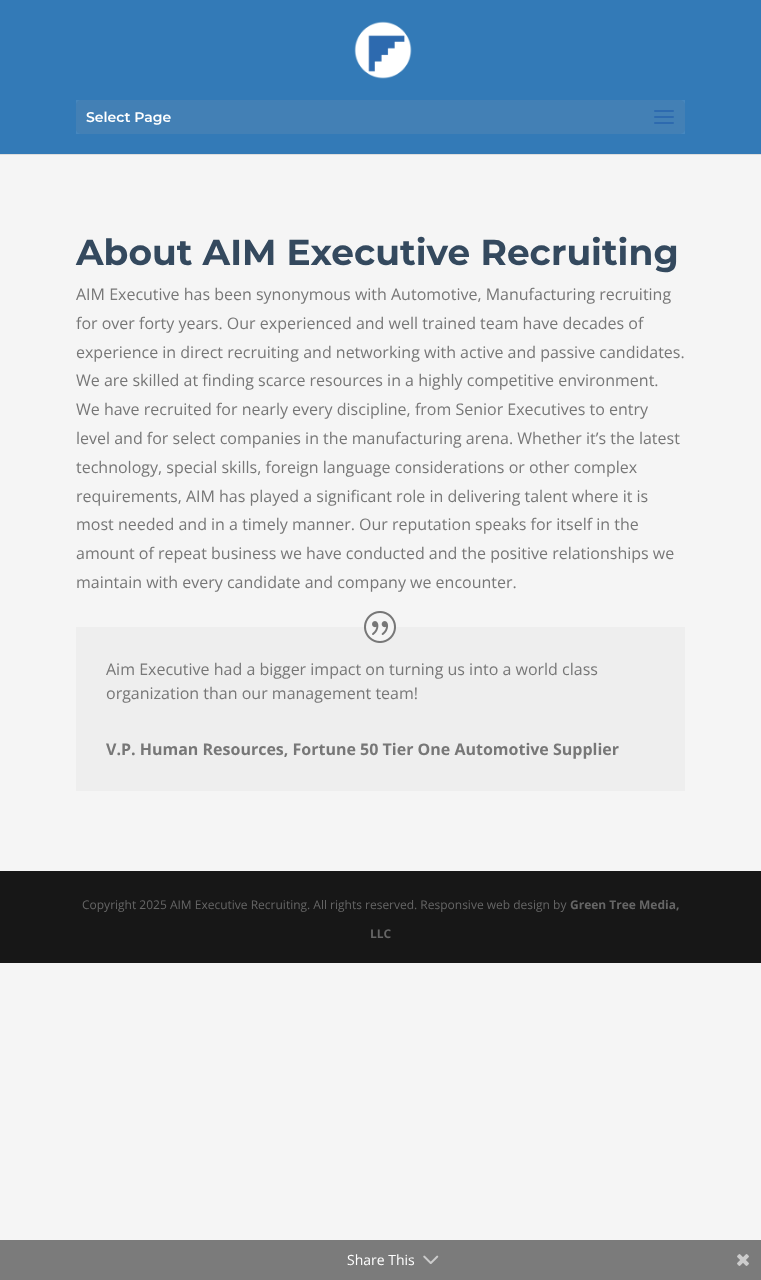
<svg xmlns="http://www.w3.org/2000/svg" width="761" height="1280">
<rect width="100%" height="100%" fill="#f5f5f5"/>
<rect y="154" width="761" height="1" fill="#ddd"/>
<rect width="761" height="154" fill="#337ab7"/>
<image x="354" y="21" width="58" height="58" href="media/1.png"/>
<rect x="76" y="100" width="609" height="34" fill="#4787be"/>
<rect x="76" y="100" width="609" height="34" rx="5" fill="#4380b5"/>
<text x="86" y="122" style="font-family:Montserrat;font-size:14px;font-weight:600;fill:#fff">Select Page</text>
<image x="654" y="110" width="20" height="14" href="media/2.png"/>
<text x="76" y="265" style="font-family:Montserrat;font-size:36px;font-weight:bold;fill:#34495e">About AIM Executive Recruiting</text>
<text x="76" y="300" style="font-family:Open Sans;font-size:16px;fill:#777">AIM Executive has been synonymous with Automotive, Manufacturing recruiting</text>
<text x="76" y="329" style="font-family:Open Sans;font-size:16px;fill:#777">for over forty years. Our experienced and well trained team have decades of</text>
<text x="76" y="358" style="font-family:Open Sans;font-size:16px;fill:#777">experience in direct recruiting and networking with active and passive candidates.</text>
<text x="76" y="386" style="font-family:Open Sans;font-size:16px;fill:#777">We are skilled at finding scarce resources in a highly competitive environment.</text>
<text x="76" y="415" style="font-family:Open Sans;font-size:16px;fill:#777">We have recruited for nearly every discipline, from Senior Executives to entry</text>
<text x="76" y="444" style="font-family:Open Sans;font-size:16px;fill:#777">level and for select companies in the manufacturing arena. Whether it’s the latest</text>
<text x="76" y="473" style="font-family:Open Sans;font-size:16px;fill:#777">technology, special skills, foreign language considerations or other complex</text>
<text x="76" y="502" style="font-family:Open Sans;font-size:16px;fill:#777">requirements, AIM has played a significant role in delivering talent where it is</text>
<text x="76" y="530" style="font-family:Open Sans;font-size:16px;fill:#777">most needed and in a timely manner. Our reputation speaks for itself in the</text>
<text x="76" y="559" style="font-family:Open Sans;font-size:16px;fill:#777">amount of repeat business we have conducted and the positive relationships we</text>
<text x="76" y="588" style="font-family:Open Sans;font-size:16px;fill:#777">maintain with every candidate and company we encounter.</text>
<rect x="76" y="627" width="609" height="164" fill="#eee"/>
<circle cx="380" cy="627" r="16" fill="#f5f5f5"/>
<image x="364" y="611" width="32" height="32" href="media/3.png"/>
<text x="106" y="675" style="font-family:Open Sans;font-size:16px;fill:#777">Aim Executive had a bigger impact on turning us into a world class</text>
<text x="106" y="699" style="font-family:Open Sans;font-size:16px;fill:#777">organization than our management team!</text>
<text x="106" y="755" style="font-family:Open Sans;font-size:16px;font-weight:bold;fill:#777">V.P. Human Resources, Fortune 50 Tier One Automotive Supplier</text>
<rect y="871" width="761" height="92" fill="#171717"/>
<text x="82" y="909" style="font-family:Open Sans;font-size:12px;fill:#666">Copyright 2025 AIM Executive Recruiting. All rights reserved. Responsive web design by</text>
<text x="570" y="909" style="font-family:Open Sans;font-size:12px;font-weight:bold;fill:#666">Green Tree Media,</text>
<text x="370" y="938" style="font-family:Open Sans;font-size:12px;font-weight:bold;fill:#666">LLC</text>
<rect y="1240" width="761" height="40" fill="#7b7b7b"/>
<text x="347" y="1265" style="font-family:Open Sans;font-size:14px;fill:#fff">Share This</text>
<image x="423" y="1255" width="16" height="9" href="media/4.png"/>
<image x="737" y="1254" width="12" height="12" href="media/5.png"/>
</svg>
